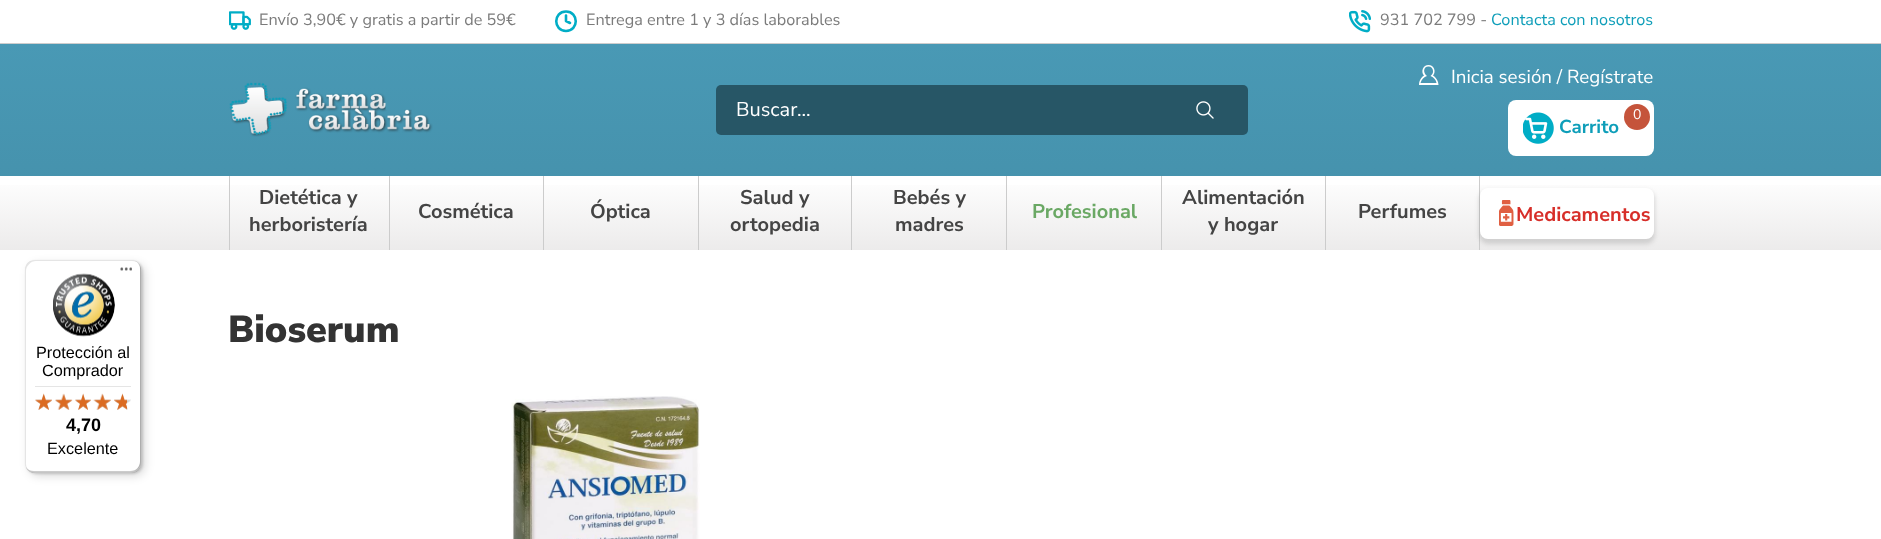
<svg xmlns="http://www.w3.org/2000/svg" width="1881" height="539">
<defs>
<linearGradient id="g1" gradientUnits="userSpaceOnUse" x1="941" y1="44" x2="941" y2="250"><stop offset="0" stop-color="#4999b5"/><stop offset="1" stop-color="#448fa9"/></linearGradient>
<linearGradient id="g2" gradientUnits="userSpaceOnUse" x1="941" y1="176" x2="941" y2="250"><stop offset="0" stop-color="#fff"/><stop offset="1" stop-color="#ecebeb"/></linearGradient>
</defs>
<rect width="100%" height="100%" fill="#fff"/>
<rect y="43" width="1881" height="1" fill="#cdcdcd"/>
<image x="229" y="11" width="22" height="19" href="media/1.png"/>
<text x="259" y="25" style="font-family:Nunito Sans;font-size:16.25px;fill:#7b7b7b">Envío 3,90€ y gratis a partir de 59€</text>
<path d="M566 31c-13 0-13-19.5 0-19.5c13 0 13 19.5 0 19.5zm0-15.5v5.5l4 2" fill="none" stroke="#00adc6" stroke-width="2.6" stroke-linecap="round" stroke-linejoin="round"/>
<text x="586" y="25" style="font-family:Nunito Sans;font-size:16.25px;fill:#7b7b7b">Entrega entre 1 y 3 días laborables</text>
<image x="1349" y="10" width="22" height="23" href="media/2.png"/>
<text x="1380" y="25" style="font-family:Nunito Sans;font-size:16.25px;fill:#7b7b7b">931 702 799 -</text>
<text x="1491" y="25" style="font-family:Nunito Sans;font-size:16.25px;fill:#0e9eb9">Contacta con nosotros</text>
<rect y="44" width="1881" height="132" fill="url(#g1)"/>
<image x="229" y="82" width="204" height="55" href="media/3.png"/>
<rect x="716" y="85" width="532" height="50" rx="5" fill="#275666"/>
<text x="736" y="116" style="font-family:Nunito Sans;font-size:20px;fill:#fff">Buscar...</text>
<image x="1196" y="101" width="18" height="18" href="media/4.png"/>
<text x="1451" y="83" style="font-family:Nunito Sans;font-size:18.75px;fill:#fff">Inicia sesión / Regístrate</text>
<path d="M1428.5 65c5.5 0 8 6.5 4.5 10.5c4 2.5 5.5 7 5.5 9.5h-19.5c0-2.5 1-7 5-9.5c-3.5-4-1-10.5 4.5-10.5zm0 1.5c-5.5 0-5.5 6.5-1.5 9.5c-3 1-5.5 3.5-6.5 7h16c-.5-3-2.5-5.5-6-7c2.5-2 2.5-3.5 2.5-5c0-2.5-2-4.5-4.5-4.5z" fill="#fff" fill-rule="evenodd"/>
<rect x="1508" y="100" width="146" height="56" rx="8" fill="#fff"/>
<image x="1523" y="112" width="31" height="32" href="media/5.png"/>
<text x="1559" y="133" style="font-family:Nunito Sans;font-size:18.75px;font-weight:bold;fill:#0e9eb9">Carrito</text>
<circle cx="1637" cy="117" r="13" fill="#c5543b"/>
<text x="1633" y="119" style="font-family:Nunito Sans;font-size:14px;fill:#fff">0</text>
<rect y="185" width="1881" height="65" fill="url(#g2)"/>
<rect x="389" y="176" width="1" height="74" fill="#ccc"/>
<rect x="229" y="176" width="1" height="74" fill="#ccc"/>
<text x="259" y="204" style="font-family:Nunito Sans;font-size:20px;font-weight:bold;fill:#444">Dietética y</text>
<text x="249" y="231" style="font-family:Nunito Sans;font-size:20px;font-weight:bold;fill:#444">herboristería</text>
<rect x="543" y="176" width="1" height="74" fill="#ccc"/>
<text x="418" y="218" style="font-family:Nunito Sans;font-size:20px;font-weight:bold;fill:#444">Cosmética</text>
<rect x="698" y="176" width="1" height="74" fill="#ccc"/>
<text x="590" y="218" style="font-family:Nunito Sans;font-size:20px;font-weight:bold;fill:#444">Óptica</text>
<rect x="851" y="176" width="1" height="74" fill="#ccc"/>
<text x="740" y="204" style="font-family:Nunito Sans;font-size:20px;font-weight:bold;fill:#444">Salud y</text>
<text x="730" y="231" style="font-family:Nunito Sans;font-size:20px;font-weight:bold;fill:#444">ortopedia</text>
<rect x="1006" y="176" width="1" height="74" fill="#ccc"/>
<text x="893" y="204" style="font-family:Nunito Sans;font-size:20px;font-weight:bold;fill:#444">Bebés y</text>
<text x="895" y="231" style="font-family:Nunito Sans;font-size:20px;font-weight:bold;fill:#444">madres</text>
<rect x="1161" y="176" width="1" height="74" fill="#ccc"/>
<text x="1032" y="218" style="font-family:Nunito Sans;font-size:20px;font-weight:bold;fill:#6aa864">Profesional</text>
<rect x="1325" y="176" width="1" height="74" fill="#ccc"/>
<text x="1182" y="204" style="font-family:Nunito Sans;font-size:20px;font-weight:bold;fill:#444">Alimentación</text>
<text x="1208" y="231" style="font-family:Nunito Sans;font-size:20px;font-weight:bold;fill:#444">y hogar</text>
<rect x="1479" y="176" width="1" height="74" fill="#ccc"/>
<text x="1358" y="218" style="font-family:Nunito Sans;font-size:20px;font-weight:bold;fill:#444">Perfumes</text>
<rect x="1479" y="190" width="176" height="54" rx="9" fill="#78787840" filter="blur(2px)"/>
<rect x="1480" y="188" width="174" height="51" rx="8" fill="#fff"/>
<image x="1499" y="200" width="15" height="26" href="media/6.png"/>
<text x="1516" y="221" style="font-family:Nunito Sans;font-size:20px;font-weight:bold;fill:#d72e29">Medicamentos</text>
<text x="228" y="342" style="font-family:Nunito Sans;font-size:37.5px;font-weight:900;fill:#333">Bioserum</text>
<image x="510" y="396" width="190" height="143" href="media/7.png"/>
<rect x="29" y="264" width="116" height="212" rx="10" fill="#00000026" filter="blur(5px)"/>
<rect x="26" y="261" width="117" height="213" rx="10" fill="#00000026" filter="blur(1px)"/>
<rect x="25" y="260" width="116" height="213" rx="10" fill="#fff"/>
<path d="M36 261h96c3 0 5 1 7 2c-2-2-5-3-8-3h-96c-6 0-10 4-10 10v193c0 4 2 7 5 9c-2-2-4-5-4-8v-193c0-5 5-10 10-10z" fill="#0000001a"/>
<path d="M26 467c2 4 5 6 9 6h96c6 0 10-4 10-10v-193c0-2-1-5-2-6c1 1 1 3 1 5v192c0 6-4 10-10 10h-96c-3 0-6-1-8-4z" fill="#00000033"/>
<path d="M26 468c2 3 5 5 9 5h96c6 0 10-4 10-10v-193c0-3-1-6-4-8c2 2 3 5 3 7v193c0 5-4 10-10 10h-96c-3 0-6-2-8-4z" fill="#32323233"/>
<image x="120" y="267" width="12" height="4" href="media/8.png"/>
<path d="M26 468c2 3 5 5 9 5h96c6 0 10-4 10-10v-1c0 5-5 10-10 10h-97c-3 0-6-2-8-4z" fill="#ffffff4d"/>
<image x="53" y="273" width="62" height="64" href="media/9.png"/>
<text x="36" y="358" style="font-family:Liberation Sans;font-size:16.25px;fill:#000">Protección al</text>
<text x="42" y="376" style="font-family:Liberation Sans;font-size:16.25px;fill:#000">Comprador</text>
<rect x="35" y="386" width="96" height="1" fill="#e5e5e5"/>
<image x="35" y="394" width="17" height="16" href="media/15.png"/>
<image x="35" y="393" width="17" height="17" href="media/10.png"/>
<image x="55" y="394" width="17" height="16" href="media/16.png"/>
<image x="55" y="393" width="18" height="17" href="media/11.png"/>
<image x="75" y="394" width="16" height="16" href="media/17.png"/>
<image x="75" y="393" width="16" height="17" href="media/12.png"/>
<image x="93" y="394" width="18" height="16" href="media/18.png"/>
<image x="93" y="393" width="18" height="17" href="media/13.png"/>
<image x="114" y="394" width="17" height="16" href="media/19.png"/>
<image x="114" y="393" width="13" height="17" href="media/14.png"/>
<text x="66" y="431" style="font-family:Liberation Sans;font-size:18px;font-weight:bold;fill:#000">4,70</text>
<text x="47" y="454" style="font-family:Liberation Sans;font-size:16.25px;fill:#000">Excelente</text>
</svg>
